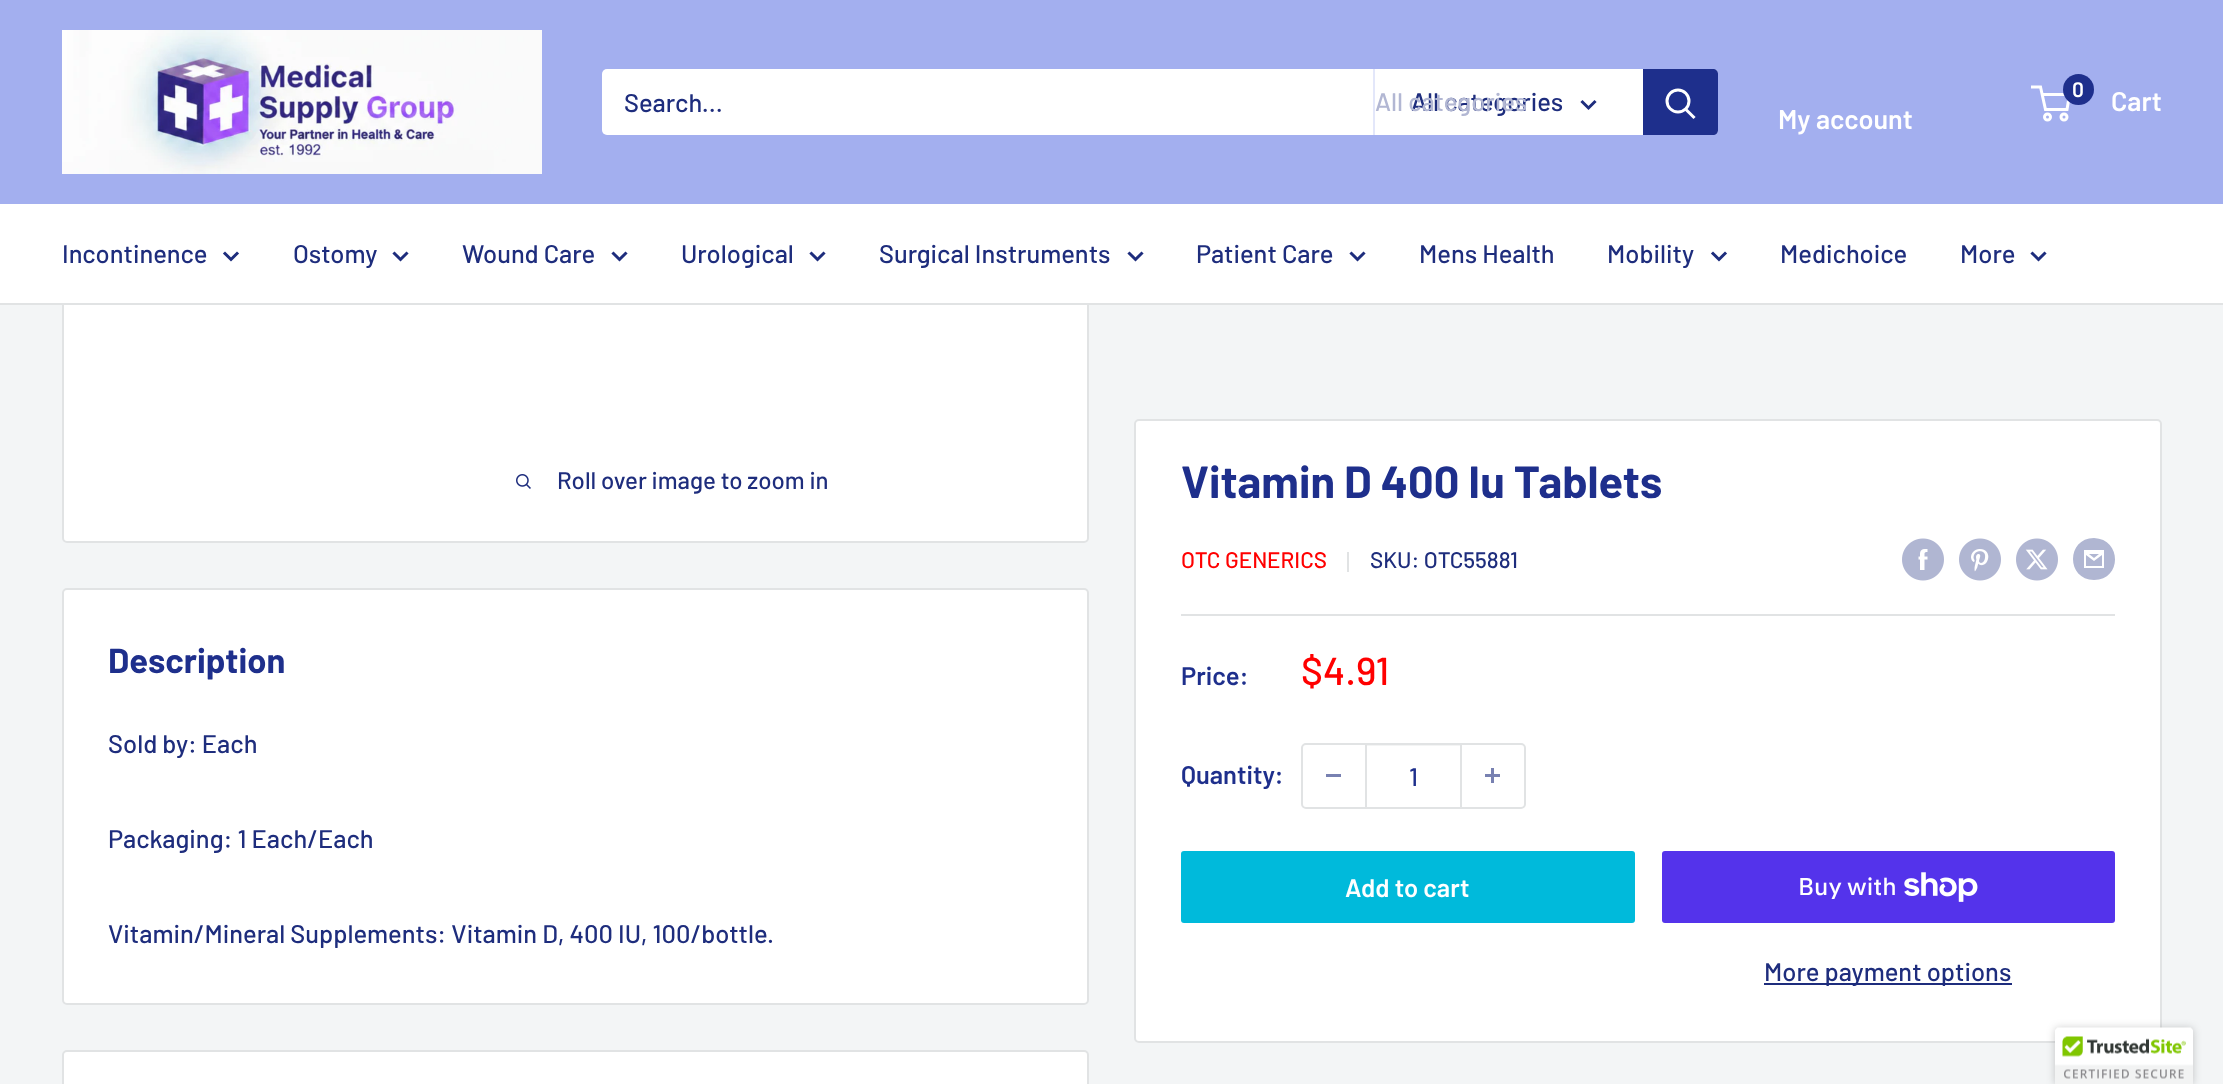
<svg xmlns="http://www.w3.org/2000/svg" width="2223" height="1084">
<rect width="100%" height="100%" fill="#f3f5f6"/>
<rect x="63" y="-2" width="1025" height="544" rx="4" fill="#fff" stroke="#e1e3e4" stroke-width="2"/>
<rect width="2223" height="204" fill="#a3afef"/>
<image x="62" y="30" width="480" height="144" href="media/1.png"/>
<rect x="602" y="69" width="1116" height="66" rx="5" fill="#fff"/>
<text x="624" y="112" style="font-family:Barlow;font-size:25.5px;font-weight:500;fill:#1e2d7d">Search...</text>
<rect x="1373" y="69" width="2" height="66" fill="#e3e7fa"/>
<text x="1411" y="111" style="font-family:Barlow;font-size:25.5px;font-weight:500;fill:#1e2d7d">All categories</text>
<text x="1375" y="111" style="font-family:Barlow;font-size:25.5px;font-weight:500;fill:#b2b7d3">All categories</text>
<path d="M1594.5 102l-6 6l-6-6" fill="none" stroke="#1e2d7d" stroke-width="3" stroke-linecap="square"/>
<path d="M1643 69h70c3 0 5 2 5 5v56c0 3-2 5-5 5h-70z" fill="#1e2f8c"/>
<path d="M1693.5 117l-7.5-7.5" fill="none" stroke="#fff" stroke-width="3" stroke-linecap="square"/>
<circle cx="1678" cy="101" r="11" fill="none" stroke="#fff" stroke-width="3"/>
<circle cx="2047.5" cy="117" r="3" fill="none" stroke="#fff" stroke-width="3"/>
<circle cx="2064" cy="117" r="3" fill="none" stroke="#fff" stroke-width="3"/>
<path d="M2042 94.5h27.5l-2.5 15h-21.5l-5-22.5h-9.5" fill="none" stroke="#fff" stroke-width="3"/>
<circle cx="2078.5" cy="89.5" r="15.5" fill="#1e2f8c"/>
<text x="2072" y="97" style="font-family:Barlow;font-size:21px;font-weight:600;fill:#fff">0</text>
<text x="2111" y="111" style="font-family:Barlow;font-size:27px;font-weight:600;fill:#fff">Cart</text>
<text x="1778" y="129" style="font-family:Barlow;font-size:27px;font-weight:600;fill:#fff">My account</text>
<rect y="204" width="2223" height="99" fill="#fff"/>
<rect y="303" width="2223" height="2" fill="#e1e3e4"/>
<text x="62" y="263" style="font-family:Barlow;font-size:25.5px;font-weight:500;fill:#1e2d7d">Incontinence</text>
<path d="M237 253.5l-6 6l-6-6" fill="none" stroke="#1e2d7d" stroke-width="3" stroke-linecap="square"/>
<text x="293" y="263" style="font-family:Barlow;font-size:25.5px;font-weight:500;fill:#1e2d7d">Ostomy</text>
<path d="M406.5 253.5l-6 6l-6-6" fill="none" stroke="#1e2d7d" stroke-width="3" stroke-linecap="square"/>
<text x="462" y="263" style="font-family:Barlow;font-size:25.5px;font-weight:500;fill:#1e2d7d">Wound Care</text>
<path d="M625.5 253.5l-6 6l-6-6" fill="none" stroke="#1e2d7d" stroke-width="3" stroke-linecap="square"/>
<text x="681" y="263" style="font-family:Barlow;font-size:25.5px;font-weight:500;fill:#1e2d7d">Urological</text>
<path d="M823.5 253.5l-6 6l-6-6" fill="none" stroke="#1e2d7d" stroke-width="3" stroke-linecap="square"/>
<text x="879" y="263" style="font-family:Barlow;font-size:25.5px;font-weight:500;fill:#1e2d7d">Surgical Instruments</text>
<path d="M1141.5 253.5l-6 6l-6-6" fill="none" stroke="#1e2d7d" stroke-width="3" stroke-linecap="square"/>
<text x="1196" y="263" style="font-family:Barlow;font-size:25.5px;font-weight:500;fill:#1e2d7d">Patient Care</text>
<path d="M1363.5 253.5l-6 6l-6-6" fill="none" stroke="#1e2d7d" stroke-width="3" stroke-linecap="square"/>
<text x="1419" y="263" style="font-family:Barlow;font-size:25.5px;font-weight:500;fill:#1e2d7d">Mens Health</text>
<text x="1607" y="263" style="font-family:Barlow;font-size:25.5px;font-weight:500;fill:#1e2d7d">Mobility</text>
<path d="M1725 253.5l-6 6l-6-6" fill="none" stroke="#1e2d7d" stroke-width="3" stroke-linecap="square"/>
<text x="1780" y="263" style="font-family:Barlow;font-size:25.5px;font-weight:500;fill:#1e2d7d">Medichoice</text>
<text x="1960" y="263" style="font-family:Barlow;font-size:25.5px;font-weight:500;fill:#1e2d7d">More</text>
<path d="M2044.5 253.5l-6 6l-6-6" fill="none" stroke="#1e2d7d" stroke-width="3" stroke-linecap="square"/>
<image x="516" y="474" width="15" height="15" href="media/2.png"/>
<text x="557" y="489" style="font-family:Barlow;font-size:24px;font-weight:500;fill:#1e2d7d">Roll over image to zoom in</text>
<rect x="1135" y="420" width="1026" height="622" rx="4" fill="#fff" stroke="#e1e3e4" stroke-width="2"/>
<text x="1181" y="498" style="font-family:Barlow;font-size:45px;font-weight:bold;fill:#1e2f8c">Vitamin D 400 Iu Tablets</text>
<text x="1181" y="568" style="font-family:Barlow;font-size:22.5px;font-weight:500;fill:#f00">OTC GENERICS</text>
<rect x="1347" y="552" width="2" height="20" fill="#e1e3e4"/>
<text x="1370" y="568" style="font-family:Barlow;font-size:22.5px;font-weight:500;fill:#1e2d7d">SKU: OTC55881</text>
<image x="1902" y="538" width="42" height="43" href="media/3.png"/>
<image x="1959" y="538" width="42" height="43" href="media/4.png"/>
<image x="2016" y="538" width="42" height="43" href="media/5.png"/>
<path d="M2094 580c-28 0-28-42 0-42c28 1 28 42 0 42zm-5-26h10l-5 4zm13 1v11h-16v-11l8 6zm2-5h-20v18h20z" fill="#b0b6d2"/>
<rect x="1181" y="614" width="934" height="2" fill="#e1e3e4"/>
<text x="1181" y="685" style="font-family:Barlow;font-size:25.5px;font-weight:600;fill:#1e2f8c">Price:</text>
<text x="1301" y="685" style="font-family:Barlow;font-size:39px;font-weight:500;fill:#f00">$4.91</text>
<text x="1181" y="784" style="font-family:Barlow;font-size:25.5px;font-weight:600;fill:#1e2f8c">Quantity:</text>
<rect x="1302" y="744" width="223" height="64" rx="4" fill="none" stroke="#e1e3e4" stroke-width="2"/>
<rect x="1326" y="774" width="15" height="3" fill="#7881b1"/>
<rect x="1367" y="745" width="93" height="1" fill="#e1e3e466"/>
<rect x="1460" y="744" width="2" height="63" fill="#e1e3e4"/>
<rect x="1365" y="744" width="2" height="63" fill="#e1e3e4"/>
<text x="1409" y="786" style="font-family:Barlow;font-size:25.5px;font-weight:500;fill:#1e2f8c">1</text>
<image x="1485" y="768" width="15" height="15" href="media/6.png"/>
<rect x="1181" y="851" width="454" height="72" rx="3" fill="#00badb"/>
<text x="1345" y="897" style="font-family:Barlow;font-size:25.5px;font-weight:600;fill:#fff">Add to cart</text>
<rect x="1662" y="851" width="453" height="72" rx="3" fill="#5433eb"/>
<text x="1798" y="895" style="font-family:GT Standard;font-size:24px;font-weight:500;fill:#fff">Buy with</text>
<image x="1904" y="872" width="74" height="30" href="media/7.png"/>
<rect x="1764" y="983" width="248" height="2" fill="#1e2d7d"/>
<text x="1764" y="981" style="font-family:Barlow;font-size:25.5px;font-weight:500;fill:#1e2d7d">More payment options</text>
<rect x="63" y="589" width="1025" height="415" rx="4" fill="#fff" stroke="#e1e3e4" stroke-width="2"/>
<text x="108" y="673" style="font-family:Barlow;font-size:34.5px;font-weight:bold;fill:#1e2f8c">Description</text>
<text x="108" y="753" style="font-family:Barlow;font-size:25.5px;font-weight:500;fill:#1e2d7d">Sold by: Each</text>
<text x="108" y="848" style="font-family:Barlow;font-size:25.5px;font-weight:500;fill:#1e2d7d">Packaging: 1 Each/Each</text>
<text x="108" y="943" style="font-family:Barlow;font-size:25.5px;font-weight:500;fill:#1e2d7d">Vitamin/Mineral Supplements: Vitamin D, 400 IU, 100/bottle.</text>
<rect x="63" y="1051" width="1025" height="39" rx="4" fill="#fff" stroke="#e1e3e4" stroke-width="2"/>
<rect x="2055" y="1028" width="138" height="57" rx="3" fill="#00000033" filter="blur(4px)"/>
<image x="2055" y="1027" width="138" height="57" href="media/8.png"/>
</svg>
